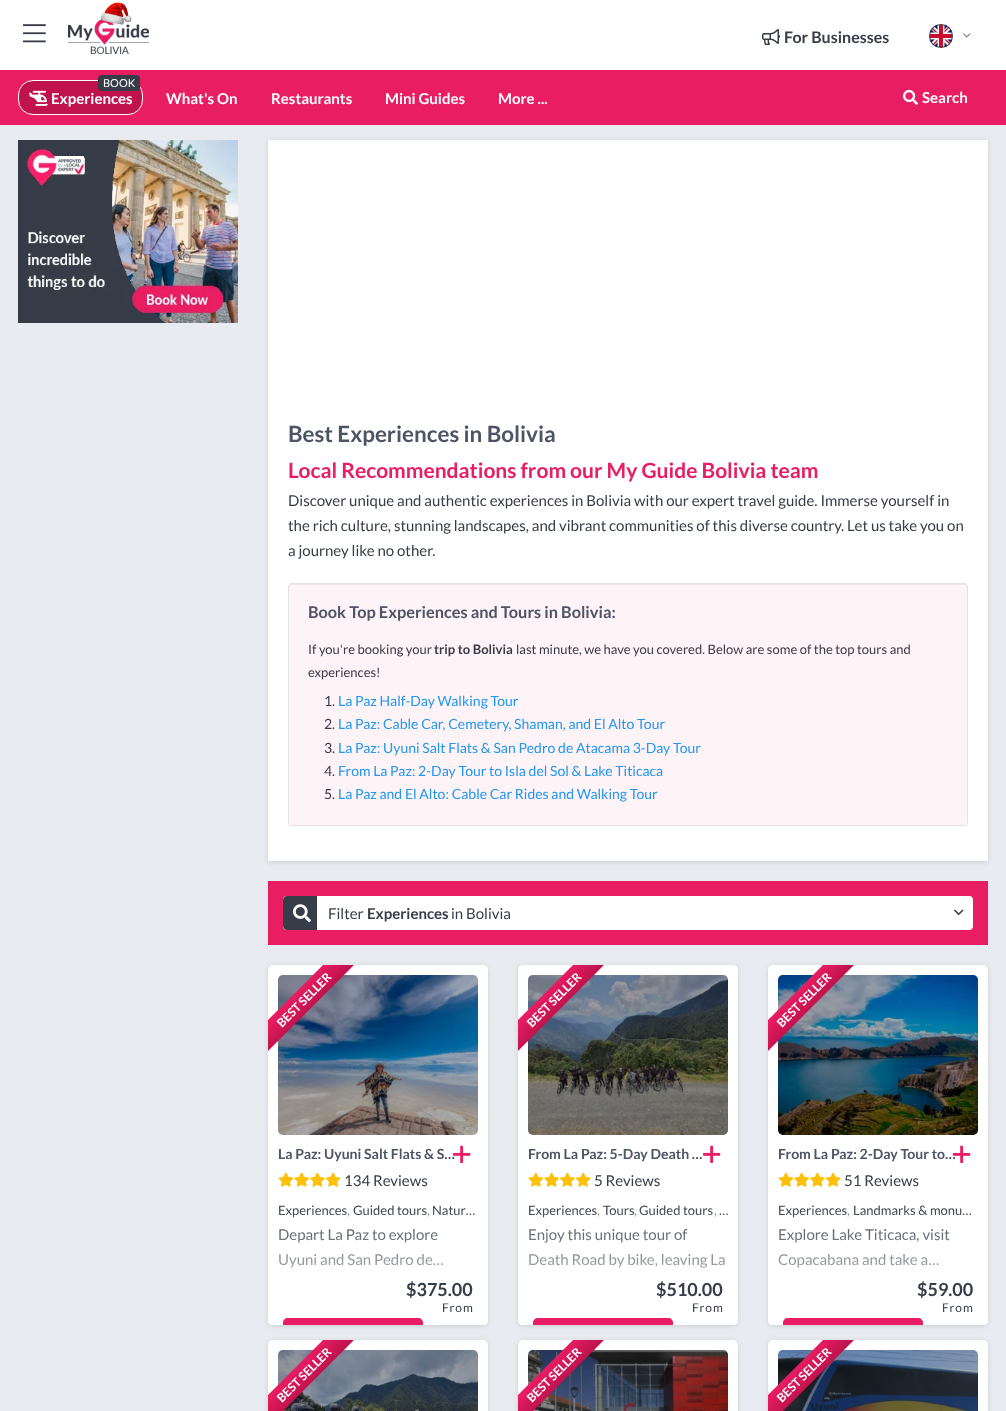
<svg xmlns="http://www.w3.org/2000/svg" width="1006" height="1411">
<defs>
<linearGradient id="g1" gradientUnits="userSpaceOnUse" x1="296" y1="992" x2="312" y2="1007"><stop offset="0" stop-color="#e91d62"/><stop offset="1" stop-color="#c0134d"/></linearGradient>
<linearGradient id="g2" gradientUnits="userSpaceOnUse" x1="378" y1="1205" x2="378" y2="1325"><stop offset="0" stop-color="#fff" stop-opacity="0"/><stop offset="1" stop-color="#fff"/></linearGradient>
<linearGradient id="g3" gradientUnits="userSpaceOnUse" x1="546" y1="992" x2="562" y2="1007"><stop offset="0" stop-color="#e91d62"/><stop offset="1" stop-color="#c0134d"/></linearGradient>
<linearGradient id="g4" gradientUnits="userSpaceOnUse" x1="628" y1="1205" x2="628" y2="1325"><stop offset="0" stop-color="#fff" stop-opacity="0"/><stop offset="1" stop-color="#fff"/></linearGradient>
<linearGradient id="g5" gradientUnits="userSpaceOnUse" x1="796" y1="992" x2="812" y2="1007"><stop offset="0" stop-color="#e91d62"/><stop offset="1" stop-color="#c0134d"/></linearGradient>
<linearGradient id="g6" gradientUnits="userSpaceOnUse" x1="878" y1="1205" x2="878" y2="1325"><stop offset="0" stop-color="#fff" stop-opacity="0"/><stop offset="1" stop-color="#fff"/></linearGradient>
<linearGradient id="g7" gradientUnits="userSpaceOnUse" x1="296" y1="1367" x2="312" y2="1382"><stop offset="0" stop-color="#e91d62"/><stop offset="1" stop-color="#c0134d"/></linearGradient>
<linearGradient id="g8" gradientUnits="userSpaceOnUse" x1="546" y1="1367" x2="562" y2="1382"><stop offset="0" stop-color="#e91d62"/><stop offset="1" stop-color="#c0134d"/></linearGradient>
<linearGradient id="g9" gradientUnits="userSpaceOnUse" x1="796" y1="1367" x2="812" y2="1382"><stop offset="0" stop-color="#e91d62"/><stop offset="1" stop-color="#c0134d"/></linearGradient>
</defs>
<rect width="100%" height="100%" fill="#fff"/>
<image x="23" y="24" width="23" height="19" href="media/1.png"/>
<image x="68" y="19" width="81" height="35" href="media/3.png"/>
<image x="100" y="2" width="32" height="23" href="media/2.png"/>
<image x="762" y="29" width="18" height="16" href="media/4.png"/>
<text x="784" y="43" style="font-family:Lato;font-size:16px;font-weight:bold;fill:#363c48">For Businesses</text>
<image x="930" y="25" width="22" height="22" href="media/5.png"/>
<circle cx="941" cy="36" r="11.5" fill="none" stroke="#363c48"/>
<image x="963" y="33" width="8" height="5" href="media/6.png"/>
<rect y="70" width="1006" height="55" fill="#e91d62"/>
<rect x="18.5" y="80.5" width="124" height="34" rx="14.5" fill="#c0134d" stroke="#fff"/>
<rect x="98" y="75" width="42" height="16" rx="4" fill="#363c48"/>
<text x="103" y="87" style="font-family:Lato;font-size:11px;fill:#fff">BOOK</text>
<image x="29" y="90" width="19" height="16" href="media/7.png"/>
<text x="51" y="104" style="font-family:Lato;font-size:15px;font-weight:bold;fill:#fff">Experiences</text>
<text x="166" y="104" style="font-family:Lato;font-size:15px;font-weight:bold;fill:#fff">What's On</text>
<text x="271" y="104" style="font-family:Lato;font-size:15px;font-weight:bold;fill:#fff">Restaurants</text>
<text x="385" y="104" style="font-family:Lato;font-size:15px;font-weight:bold;fill:#fff">Mini Guides</text>
<text x="498" y="104" style="font-family:Lato;font-size:15px;font-weight:bold;fill:#fff">More ...</text>
<image x="903" y="89" width="15" height="16" href="media/8.png"/>
<text x="922" y="103" style="font-family:Lato;font-size:15px;font-weight:bold;fill:#fff">Search</text>
<rect y="125" width="1006" height="1286" fill="#e8ecf1"/>
<image x="18" y="140" width="220" height="183" href="media/9.png"/>
<rect x="268" y="141" width="720" height="721" fill="#ccc" filter="blur(2.5px)"/>
<rect x="268" y="140" width="720" height="721" fill="#fff"/>
<text x="288" y="442" style="font-family:Lato;font-size:22.4px;font-weight:bold;fill:#4c5465">Best Experiences in Bolivia</text>
<text x="288" y="478" style="font-family:Lato;font-size:21px;font-weight:bold;fill:#e91d62">Local Recommendations from our My Guide Bolivia team</text>
<text x="288" y="506" style="font-family:Lato;font-size:15px;fill:#363c48">Discover unique and authentic experiences in Bolivia with our expert travel guide. Immerse yourself in</text>
<text x="288" y="531" style="font-family:Lato;font-size:15px;fill:#363c48">the rich culture, stunning landscapes, and vibrant communities of this diverse country. Let us take you on</text>
<text x="288" y="556" style="font-family:Lato;font-size:15px;fill:#363c48">a journey like no other.</text>
<rect x="288" y="583" width="680" height="243" rx="4" fill="#fef3f7"/>
<path d="M292 585h672c2 0 3 1 3 3v-1c0-2-1-3-3-3h-672c-2 0-3 1-3 3v1c0-2 1-3 3-3z" fill="#f1e7eb"/>
<rect x="288.5" y="583.5" width="679" height="242" rx="3.5" fill="none" stroke="#e3e3e3"/>
<text x="308" y="618" style="font-family:Lato;font-size:16.3px;font-weight:bold;fill:#4c5465">Book Top Experiences and Tours in Bolivia:</text>
<text x="308" y="654" style="font-family:Lato;font-size:13px;fill:#363c48">If you</text>
<text x="340" y="654" style="font-family:Liberation Sans;font-size:13px;fill:#363c48">ʻ</text>
<text x="343" y="654" style="font-family:Lato;font-size:13px;fill:#363c48">re booking your</text>
<text x="434" y="654" style="font-family:Lato;font-size:13px;font-weight:bold;fill:#363c48">trip to Bolivia</text>
<text x="516" y="654" style="font-family:Lato;font-size:13px;fill:#363c48">last minute, we have you covered. Below are some of the top tours and</text>
<text x="308" y="677" style="font-family:Lato;font-size:13px;fill:#363c48">experiences!</text>
<text x="324" y="706" style="font-family:Lato;font-size:14px;fill:#363c48">1.</text>
<text x="338" y="706" style="font-family:Lato;font-size:14px;fill:#2196f3">La Paz Half-Day Walking Tour</text>
<text x="324" y="729" style="font-family:Lato;font-size:14px;fill:#363c48">2.</text>
<text x="338" y="729" style="font-family:Lato;font-size:14px;fill:#2196f3">La Paz: Cable Car, Cemetery, Shaman, and El Alto Tour</text>
<text x="324" y="753" style="font-family:Lato;font-size:14px;fill:#363c48">3.</text>
<text x="338" y="753" style="font-family:Lato;font-size:14px;fill:#2196f3">La Paz: Uyuni Salt Flats &amp; San Pedro de Atacama 3-Day Tour</text>
<text x="324" y="776" style="font-family:Lato;font-size:14px;fill:#363c48">4.</text>
<text x="338" y="776" style="font-family:Lato;font-size:14px;fill:#2196f3">From La Paz: 2-Day Tour to Isla del Sol &amp; Lake Titicaca</text>
<text x="324" y="799" style="font-family:Lato;font-size:14px;fill:#363c48">5.</text>
<text x="338" y="799" style="font-family:Lato;font-size:14px;fill:#2196f3">La Paz and El Alto: Cable Car Rides and Walking Tour</text>
<rect x="268" y="881" width="720" height="64" fill="#e91d62"/>
<rect x="283" y="896" width="690" height="34" rx="4" fill="#fff"/>
<path d="M287 896h30v34h-30c-2 0-4-2-4-4v-26c0-2 2-4 4-4z" fill="#363c48"/>
<image x="293" y="904" width="18" height="19" href="media/10.png"/>
<text x="328" y="919" style="font-family:Lato;font-size:15px;fill:#363c48">Filter</text>
<text x="367" y="919" style="font-family:Lato;font-size:15px;font-weight:bold;fill:#363c48">Experiences</text>
<text x="451" y="919" style="font-family:Lato;font-size:15px;fill:#363c48">in Bolivia</text>
<image x="954" y="909" width="10" height="7" href="media/11.png"/>
<rect x="268" y="966" width="220" height="360" rx="5" fill="#ccc" filter="blur(2.5px)"/>
<rect x="268" y="965" width="220" height="360" rx="5" fill="#fff"/>
<image x="278" y="975" width="200" height="160" href="media/13.png"/>
<rect x="278" y="975" width="200" height="160" rx="5" fill="#0000004d"/>
<path d="M354 965l-86 86v-31l55-55z" fill="url(#g1)"/>
<text x="282" y="1028" transform="rotate(-45 282 1028)" style="font-family:Lato;font-size:12px;font-weight:bold;fill:#fff">BEST SELLER</text>
<text x="278" y="1159" style="font-family:Lato;font-size:14px;font-weight:bold;fill:#4c5465">La Paz: Uyuni Salt Flats &amp; S…</text>
<image x="453" y="1145" width="18" height="18" href="media/12.png"/>
<image x="278" y="1172" width="63" height="15" href="media/14.png"/>
<text x="344" y="1186" style="font-family:Lato;font-size:15px;fill:#363c48">134 Reviews</text>
<text x="278" y="1215" style="font-family:Lato;font-size:13px;fill:#363c48">Experiences</text>
<text x="347" y="1215" style="font-family:Lato;font-size:13px;fill:#838383">,</text>
<text x="353" y="1215" style="font-family:Lato;font-size:13px;fill:#363c48">Guided tours</text>
<text x="427" y="1215" style="font-family:Lato;font-size:13px;fill:#838383">,</text>
<text x="432" y="1215" style="font-family:Lato;font-size:13px;fill:#363c48">Natur…</text>
<text x="278" y="1240" style="font-family:Lato;font-size:15px;fill:#363c48">Depart La Paz to explore</text>
<text x="278" y="1265" style="font-family:Lato;font-size:15px;fill:#363c48">Uyuni and San Pedro de…</text>
<path d="M268 1205h220v115c0 3-2 5-5 5h-210c-3 0-5-2-5-5z" fill="url(#g2)"/>
<path d="M268 1270h220v50c0 3-2 5-5 5h-210c-3 0-5-2-5-5z" fill="#fff"/>
<text x="406" y="1296" style="font-family:Lato;font-size:18px;font-weight:bold;fill:#363c48">$375.00</text>
<text x="442" y="1312" style="font-family:Lato;font-size:12px;letter-spacing:1px;fill:#363c48">From</text>
<path d="M288 1318h130c3 0 5 2 5 5v2h-140v-2c0-3 2-5 5-5z" fill="#e91d62"/>
<rect x="518" y="966" width="220" height="360" rx="5" fill="#ccc" filter="blur(2.5px)"/>
<rect x="518" y="965" width="220" height="360" rx="5" fill="#fff"/>
<image x="528" y="975" width="200" height="160" href="media/16.png"/>
<rect x="528" y="975" width="200" height="160" rx="5" fill="#0000004d"/>
<path d="M604 965l-86 86v-31l55-55z" fill="url(#g3)"/>
<text x="532" y="1028" transform="rotate(-45 532 1028)" style="font-family:Lato;font-size:12px;font-weight:bold;fill:#fff">BEST SELLER</text>
<image x="703" y="1145" width="18" height="18" href="media/15.png"/>
<text x="528" y="1159" style="font-family:Lato;font-size:14px;font-weight:bold;fill:#4c5465">From La Paz: 5-Day Death …</text>
<image x="528" y="1172" width="63" height="15" href="media/14.png"/>
<text x="594" y="1186" style="font-family:Lato;font-size:15px;fill:#363c48">5 Reviews</text>
<text x="528" y="1215" style="font-family:Lato;font-size:13px;fill:#363c48">Experiences</text>
<text x="597" y="1215" style="font-family:Lato;font-size:13px;fill:#838383">,</text>
<text x="603" y="1215" style="font-family:Lato;font-size:13px;fill:#363c48">Tours</text>
<text x="634" y="1215" style="font-family:Lato;font-size:13px;fill:#838383">,</text>
<text x="639" y="1215" style="font-family:Lato;font-size:13px;fill:#363c48">Guided tours</text>
<text x="714" y="1215" style="font-family:Lato;font-size:13px;fill:#838383">,</text>
<text x="719" y="1215" style="font-family:Lato;font-size:13px;fill:#363c48">…</text>
<text x="528" y="1240" style="font-family:Lato;font-size:15px;fill:#363c48">Enjoy this unique tour of</text>
<text x="528" y="1265" style="font-family:Lato;font-size:15px;fill:#363c48">Death Road by bike, leaving La</text>
<path d="M518 1205h220v115c0 3-2 5-5 5h-210c-3 0-5-2-5-5z" fill="url(#g4)"/>
<path d="M518 1270h220v50c0 3-2 5-5 5h-210c-3 0-5-2-5-5z" fill="#fff"/>
<text x="656" y="1296" style="font-family:Lato;font-size:18px;font-weight:bold;fill:#363c48">$510.00</text>
<text x="692" y="1312" style="font-family:Lato;font-size:12px;letter-spacing:1px;fill:#363c48">From</text>
<path d="M538 1318h130c3 0 5 2 5 5v2h-140v-2c0-3 2-5 5-5z" fill="#e91d62"/>
<rect x="768" y="966" width="220" height="360" rx="5" fill="#ccc" filter="blur(2.5px)"/>
<rect x="768" y="965" width="220" height="360" rx="5" fill="#fff"/>
<image x="778" y="975" width="200" height="160" href="media/18.png"/>
<rect x="778" y="975" width="200" height="160" rx="5" fill="#0000004d"/>
<path d="M854 965l-86 86v-31l55-55z" fill="url(#g5)"/>
<text x="782" y="1028" transform="rotate(-45 782 1028)" style="font-family:Lato;font-size:12px;font-weight:bold;fill:#fff">BEST SELLER</text>
<text x="778" y="1159" style="font-family:Lato;font-size:14px;font-weight:bold;fill:#4c5465">From La Paz: 2-Day Tour to…</text>
<image x="953" y="1145" width="18" height="18" href="media/17.png"/>
<image x="778" y="1172" width="63" height="15" href="media/14.png"/>
<text x="844" y="1186" style="font-family:Lato;font-size:15px;fill:#363c48">51 Reviews</text>
<text x="778" y="1215" style="font-family:Lato;font-size:13px;fill:#363c48">Experiences</text>
<text x="847" y="1215" style="font-family:Lato;font-size:13px;fill:#838383">,</text>
<text x="853" y="1215" style="font-family:Lato;font-size:13px;fill:#363c48">Landmarks &amp; monu…</text>
<text x="778" y="1240" style="font-family:Lato;font-size:15px;fill:#363c48">Explore Lake Titicaca, visit</text>
<text x="778" y="1265" style="font-family:Lato;font-size:15px;fill:#363c48">Copacabana and take a…</text>
<path d="M768 1205h220v115c0 3-2 5-5 5h-210c-3 0-5-2-5-5z" fill="url(#g6)"/>
<path d="M768 1270h220v50c0 3-2 5-5 5h-210c-3 0-5-2-5-5z" fill="#fff"/>
<text x="917" y="1296" style="font-family:Lato;font-size:18px;font-weight:bold;fill:#363c48">$59.00</text>
<text x="942" y="1312" style="font-family:Lato;font-size:12px;letter-spacing:1px;fill:#363c48">From</text>
<path d="M788 1318h130c3 0 5 2 5 5v2h-140v-2c0-3 2-5 5-5z" fill="#e91d62"/>
<rect x="268" y="1341" width="220" height="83" rx="5" fill="#ccc" filter="blur(2.5px)"/>
<rect x="268" y="1340" width="220" height="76" rx="5" fill="#fff"/>
<image x="278" y="1350" width="200" height="61" href="media/19.png"/>
<rect x="278" y="1350" width="200" height="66" rx="5" fill="#0000004d"/>
<path d="M354 1340l-86 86v-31l55-55z" fill="url(#g7)"/>
<text x="282" y="1403" transform="rotate(-45 282 1403)" style="font-family:Lato;font-size:12px;font-weight:bold;fill:#fff">BEST SELLER</text>
<rect x="518" y="1341" width="220" height="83" rx="5" fill="#ccc" filter="blur(2.5px)"/>
<rect x="518" y="1340" width="220" height="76" rx="5" fill="#fff"/>
<image x="528" y="1350" width="200" height="61" href="media/20.png"/>
<rect x="528" y="1350" width="200" height="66" rx="5" fill="#0000004d"/>
<path d="M604 1340l-86 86v-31l55-55z" fill="url(#g8)"/>
<text x="532" y="1403" transform="rotate(-45 532 1403)" style="font-family:Lato;font-size:12px;font-weight:bold;fill:#fff">BEST SELLER</text>
<rect x="768" y="1341" width="220" height="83" rx="5" fill="#ccc" filter="blur(2.5px)"/>
<rect x="768" y="1340" width="220" height="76" rx="5" fill="#fff"/>
<image x="778" y="1350" width="200" height="61" href="media/21.png"/>
<rect x="778" y="1350" width="200" height="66" rx="5" fill="#0000004d"/>
<path d="M854 1340l-86 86v-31l55-55z" fill="url(#g9)"/>
<text x="782" y="1403" transform="rotate(-45 782 1403)" style="font-family:Lato;font-size:12px;font-weight:bold;fill:#fff">BEST SELLER</text>
</svg>
